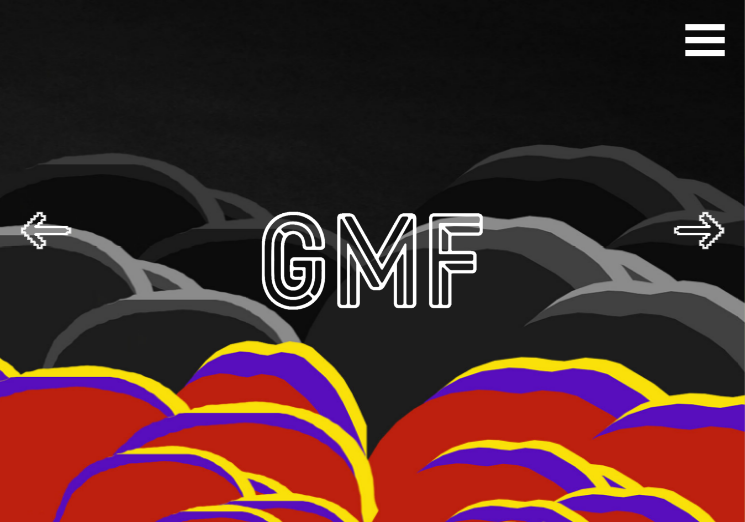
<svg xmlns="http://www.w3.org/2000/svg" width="745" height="522">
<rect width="100%" height="100%" fill="#fff"/>
<image x="744" y="0" width="1" height="522" href="media/1.png"/>
<image x="0" y="0" width="745" height="522" href="media/2.png"/>
<image x="261" y="211" width="222" height="99" href="media/3.png"/>
<image x="20" y="211" width="52" height="39" href="media/4.png"/>
<image x="673" y="211" width="52" height="39" href="media/5.png"/>
<image x="685" y="24" width="40" height="33" href="media/6.png"/>
</svg>
